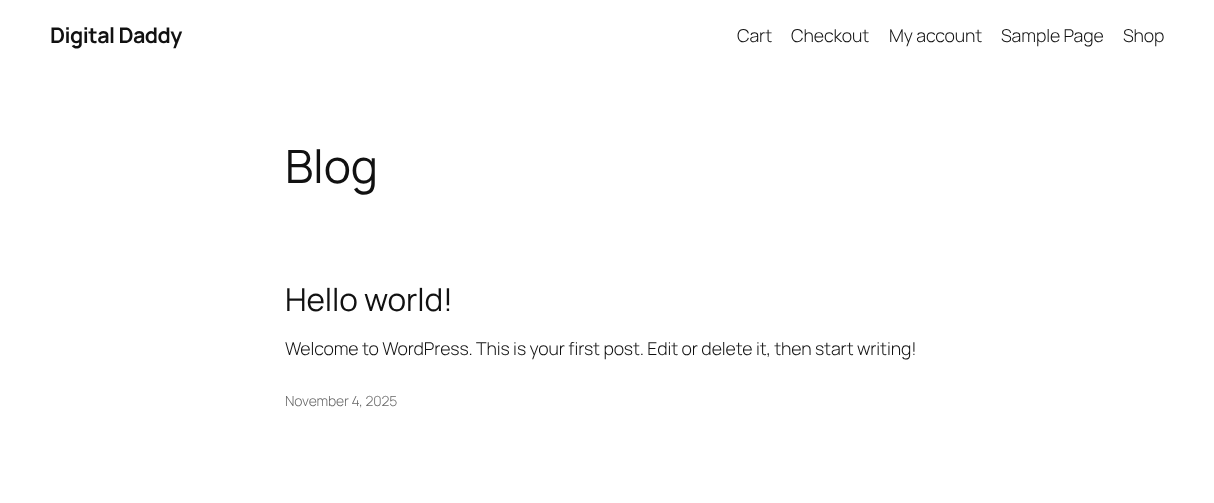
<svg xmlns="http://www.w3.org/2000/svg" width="1214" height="503">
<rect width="100%" height="100%" fill="#fff"/>
<text x="50" y="43" style="font-family:Manrope;font-size:21.5px;font-weight:bold;letter-spacing:-0.5px;fill:#111">Digital Daddy</text>
<text x="737" y="42" style="font-family:Manrope;font-size:17.75px;font-weight:300;letter-spacing:-0.1px;fill:#111">Cart</text>
<text x="791" y="42" style="font-family:Manrope;font-size:17.75px;font-weight:300;letter-spacing:-0.1px;fill:#111">Checkout</text>
<text x="889" y="42" style="font-family:Manrope;font-size:17.75px;font-weight:300;letter-spacing:-0.1px;fill:#111">My account</text>
<text x="1001" y="42" style="font-family:Manrope;font-size:17.75px;font-weight:300;letter-spacing:-0.1px;fill:#111">Sample Page</text>
<text x="1123" y="42" style="font-family:Manrope;font-size:17.75px;font-weight:300;letter-spacing:-0.1px;fill:#111">Shop</text>
<text x="285" y="183" style="font-family:Manrope;font-size:46px;letter-spacing:-0.1px;fill:#111">Blog</text>
<text x="285" y="311" style="font-family:Manrope;font-size:31.5px;letter-spacing:-0.1px;fill:#111">Hello world!</text>
<text x="285" y="355" style="font-family:Manrope;font-size:17.75px;font-weight:300;letter-spacing:-0.1px;fill:#111">Welcome to WordPress. This is your first post. Edit or delete it, then start writing!</text>
<text x="285" y="406" style="font-family:Manrope;font-size:14px;font-weight:300;letter-spacing:-0.1px;fill:#686868">November 4, 2025</text>
</svg>
